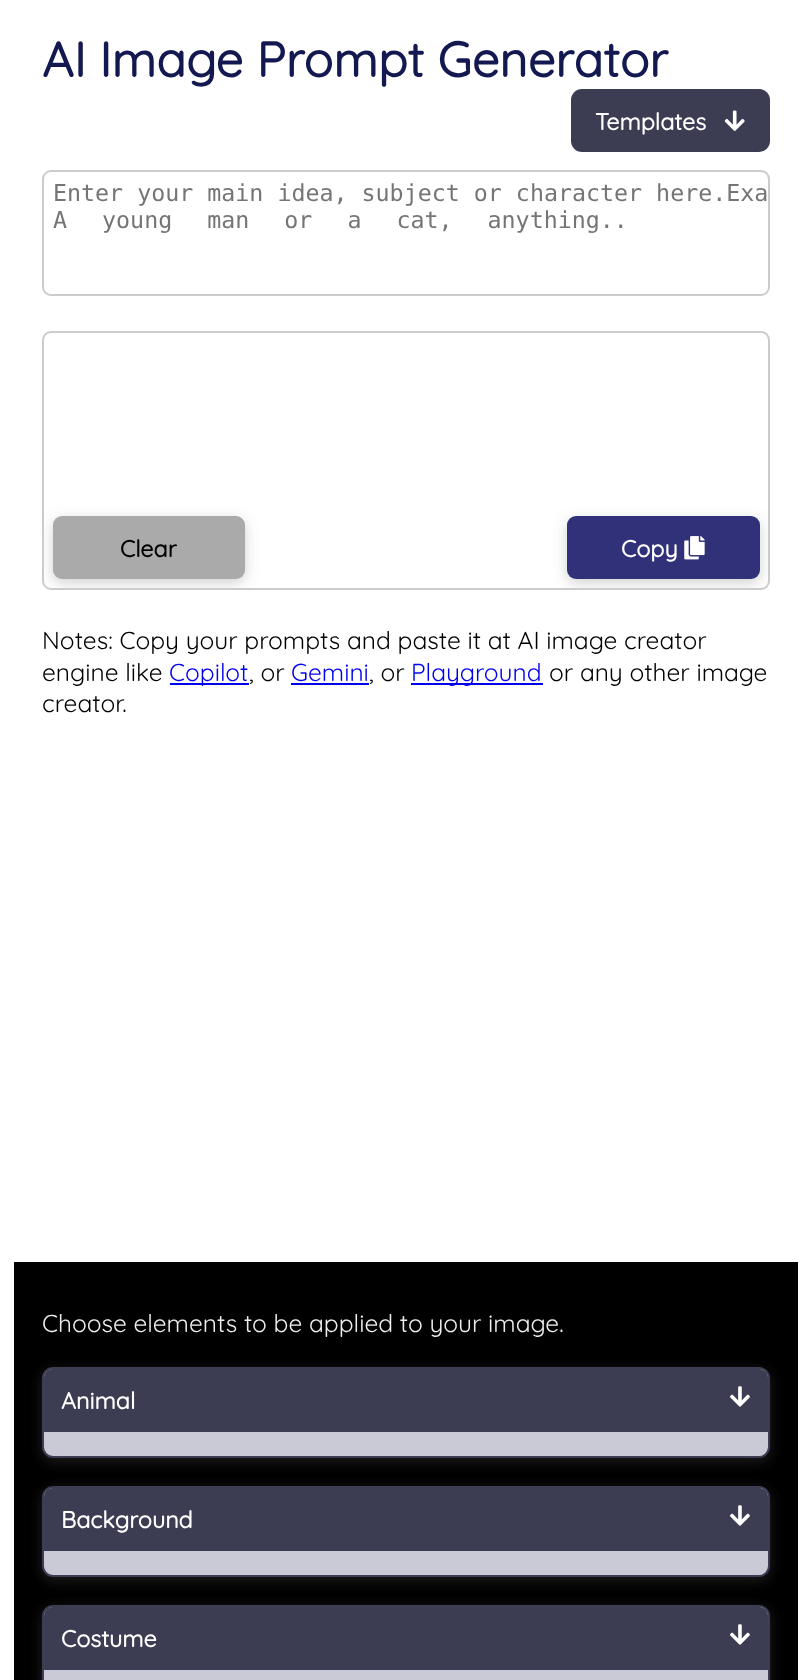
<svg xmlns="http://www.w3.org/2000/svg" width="811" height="1680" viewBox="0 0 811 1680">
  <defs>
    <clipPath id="clip1"><rect x="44" y="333" width="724" height="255" rx="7"/></clipPath>
    <filter id="blur1" x="-50%" y="-200%" width="200%" height="500%"><feGaussianBlur stdDeviation="7"/></filter>
  </defs>
  <rect width="100%" height="100%" fill="#ffffff"/>
  <text x="42" y="77" font-family="Quicksand" font-size="49" font-weight="bold" fill="#141850">AI Image Prompt Generator</text>
  <rect x="571" y="89" width="199" height="63" rx="11" fill="#3c3c53"/>
  <text x="595" y="130" font-family="Quicksand" font-size="23.3" font-weight="bold" fill="#ffffff">Templates</text>
  <image x="724" y="110" width="21" height="21" href="img1.png"/>
  <rect x="43" y="171" width="726" height="124" rx="8" fill="none" stroke="#cccccc" stroke-width="2"/>
  <text x="53" y="201" font-family="DejaVu Sans Mono" font-size="23.3" fill="#757575">Enter your main idea, subject or character here.Exa</text>
  <text x="53" y="228" word-spacing="21" font-family="DejaVu Sans Mono" font-size="23.3" fill="#757575">A young man or a cat, anything..</text>
  <rect x="43" y="332" width="726" height="257" rx="8" fill="none" stroke="#cccccc" stroke-width="2"/>
  <g clip-path="url(#clip1)">
    <rect x="53" y="520" width="192" height="63" rx="9" fill="#636363" fill-opacity="0.3" filter="url(#blur1)"/>
  </g>
  <rect x="53" y="516" width="192" height="63" rx="9" fill="#aaaaaa"/>
  <text x="120" y="557" font-family="Quicksand" font-size="23.3" font-weight="bold" fill="#000000">Clear</text>
  <g clip-path="url(#clip1)">
    <rect x="567" y="520" width="193" height="63" rx="9" fill="#636363" fill-opacity="0.3" filter="url(#blur1)"/>
  </g>
  <rect x="567" y="516" width="193" height="63" rx="9" fill="#303179"/>
  <text x="621" y="557" font-family="Quicksand" font-size="23.3" font-weight="bold" fill="#ffffff">Copy</text>
  <image x="684" y="536" width="21" height="24" href="img2.png"/>
  <text x="42" y="649" font-family="Quicksand" font-size="24.5" font-weight="300" fill="#000000">Notes: Copy your prompts and paste it at AI image creator</text>
  <text x="42" y="681" font-family="Quicksand" font-size="24.5" font-weight="300" fill="#000000">engine like</text>
  <rect x="170" y="683" width="79" height="2" fill="#0000ee"/>
  <text x="169" y="681" font-family="Quicksand" font-size="24.5" font-weight="300" fill="#0000ee">Copilot</text>
  <text x="249" y="681" font-family="Quicksand" font-size="24.5" font-weight="300" fill="#000000">, or</text>
  <text x="291" y="681" font-family="Quicksand" font-size="24.5" font-weight="300" fill="#0000ee">Gemini</text>
  <rect x="291" y="683" width="78" height="2" fill="#0000ee"/>
  <text x="369" y="681" font-family="Quicksand" font-size="24.5" font-weight="300" fill="#000000">, or</text>
  <rect x="411" y="683" width="132" height="2" fill="#0000ee"/>
  <text x="411" y="681" font-family="Quicksand" font-size="24.5" font-weight="300" fill="#0000ee">Playground</text>
  <text x="549" y="681" font-family="Quicksand" font-size="24.5" font-weight="300" fill="#000000">or any other image</text>
  <text x="42" y="712" font-family="Quicksand" font-size="24.5" font-weight="300" fill="#000000">creator.</text>
  <rect x="14" y="1262" width="784" height="418" fill="#000000"/>
  <text x="42" y="1332" font-family="Quicksand" font-size="24.5" font-weight="300" fill="#eeeeee">Choose elements to be applied to your image.</text>
  <rect x="42" y="1370" width="728" height="91" rx="11" fill="#636363" fill-opacity="0.3" filter="url(#blur1)"/>
  <rect x="43" y="1368" width="726" height="89" rx="10" fill="#cacad7" stroke="#3c3c53" stroke-width="2"/>
  <path d="M53 1369H759C764 1369 768 1373 768 1378V1432H44V1378C44 1373 48 1369 53 1369Z" fill="#3c3c53"/>
  <text x="61" y="1409" font-family="Quicksand" font-size="23.3" font-weight="bold" fill="#ffffff">Animal</text>
  <image x="730" y="1386" width="20" height="21" href="img3.png"/>
  <rect x="42" y="1489" width="728" height="91" rx="11" fill="#636363" fill-opacity="0.3" filter="url(#blur1)"/>
  <rect x="43" y="1487" width="726" height="89" rx="10" fill="#cacad7" stroke="#3c3c53" stroke-width="2"/>
  <path d="M53 1488H759C764 1488 768 1492 768 1497V1551H44V1497C44 1492 48 1488 53 1488Z" fill="#3c3c53"/>
  <text x="61" y="1528" font-family="Quicksand" font-size="23.3" font-weight="bold" fill="#ffffff">Background</text>
  <image x="730" y="1505" width="20" height="21" href="img3.png"/>
  <rect x="42" y="1608" width="728" height="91" rx="11" fill="#636363" fill-opacity="0.3" filter="url(#blur1)"/>
  <rect x="43" y="1606" width="726" height="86" rx="10" fill="#cacad7" stroke="#3c3c53" stroke-width="2"/>
  <path d="M53 1607H759C764 1607 768 1611 768 1616V1670H44V1616C44 1611 48 1607 53 1607Z" fill="#3c3c53"/>
  <text x="61" y="1647" font-family="Quicksand" font-size="23.3" font-weight="bold" fill="#ffffff">Costume</text>
  <image x="730" y="1624" width="20" height="21" href="img3.png"/>
</svg>
